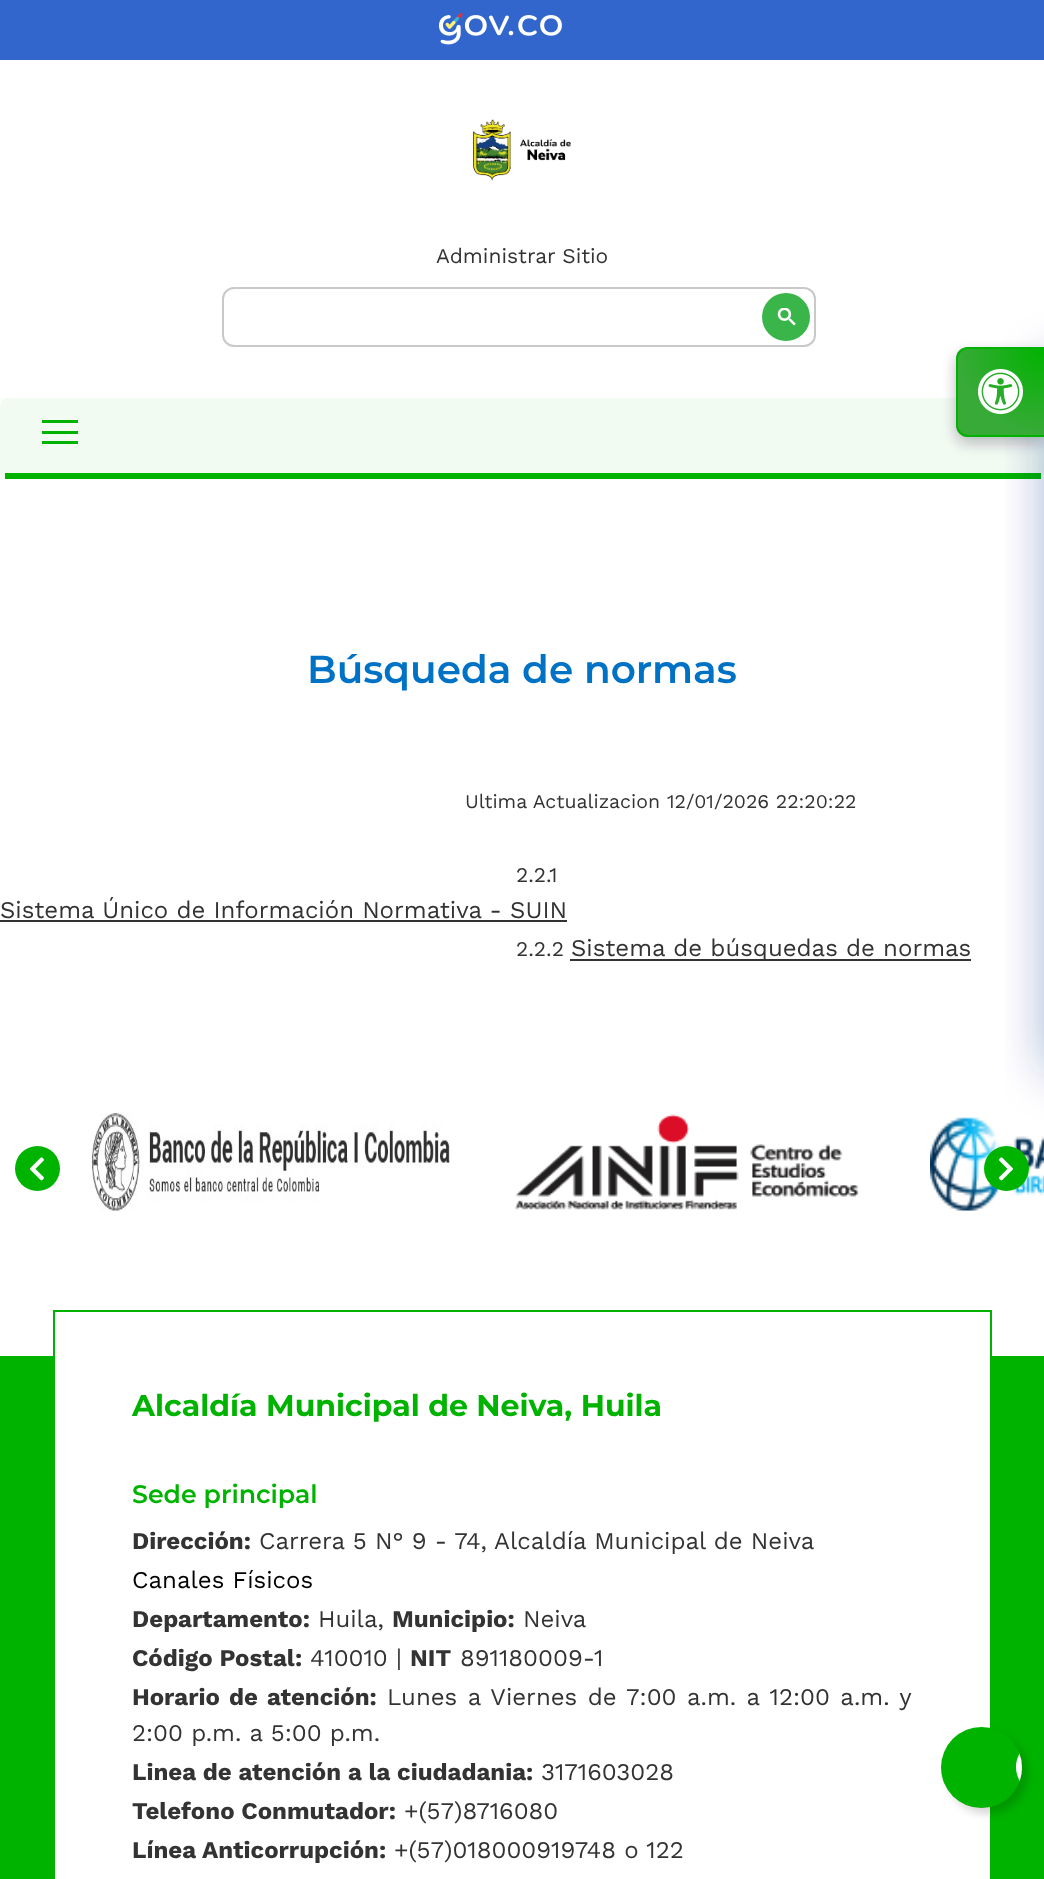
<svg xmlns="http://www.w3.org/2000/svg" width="1044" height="1879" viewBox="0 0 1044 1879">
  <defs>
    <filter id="blur1" x="-50%" y="-200%" width="200%" height="500%"><feGaussianBlur stdDeviation="4.5"/></filter>
    <clipPath id="clip1"><rect x="941" y="1727" width="81" height="81" rx="40.5"/></clipPath>
    <filter id="blur2" x="-50%" y="-200%" width="200%" height="500%"><feGaussianBlur stdDeviation="24"/></filter>
    <filter id="blur3" x="-50%" y="-200%" width="200%" height="500%"><feGaussianBlur stdDeviation="7"/></filter>
    <filter id="blur4" x="-50%" y="-200%" width="200%" height="500%"><feGaussianBlur stdDeviation="0.5"/></filter>
    <clipPath id="clip2"><path d="M968 347H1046V437H968C961.5 437 956 431.5 956 425V359C956 352.5 961.5 347 968 347Z"/></clipPath>
    <radialGradient id="g1" gradientUnits="userSpaceOnUse" cx="1044" cy="348" r="87"><stop offset="0" stop-color="#00b300"/><stop offset="1" stop-color="#38aa38"/></radialGradient>
  </defs>
  <rect width="100%" height="100%" fill="#ffffff"/>
  <rect x="0" y="0" width="1044" height="60" fill="#3366cc"/>
  <image x="438" y="13" width="124" height="32" href="img1.png"/>
  <image x="473" y="119" width="98" height="62" href="img2.png"/>
  <text x="436" y="263" font-family="Work Sans" font-size="21" fill="#333333">Administrar Sitio</text>
  <rect x="223" y="288" width="592" height="58" rx="11" fill="none" stroke="#c9c9c9" stroke-width="2"/>
  <circle cx="786" cy="317" r="24" fill="#39b54a"/>
  <image x="777" y="308" width="19" height="18" href="img3.png"/>
  <rect x="0" y="398" width="1044" height="81" rx="8" fill="#f2fbf2"/>
  <rect x="5" y="473" width="1036" height="6" fill="#00b300"/>
  <rect x="42" y="431" width="36" height="3" fill="#00b300"/>
  <rect x="42" y="420" width="36" height="3" fill="#00b300"/>
  <rect x="42" y="441" width="36" height="3" fill="#00b300"/>
  <text x="307" y="683" font-family="Montserrat" font-size="39" font-weight="600" fill="#0072c6">Búsqueda de normas</text>
  <text x="465" y="808" font-family="Work Sans" font-size="19.5" fill="#333333">Ultima Actualizacion</text>
  <text x="667" y="808" font-family="Work Sans" font-size="19.5" fill="#333333">12/01/2026 22:20:22</text>
  <text x="516" y="882" font-family="Work Sans" font-size="21" fill="#333333">2.2.1</text>
  <text x="0" y="918" font-family="Work Sans" font-size="24" fill="#333333">Sistema Único de Información Normativa - SUIN</text>
  <rect x="0" y="920" width="567" height="2" fill="#333333"/>
  <text x="516" y="956" font-family="Work Sans" font-size="21" fill="#333333">2.2.2</text>
  <rect x="570" y="959" width="401" height="2" fill="#333333"/>
  <text x="571" y="956" font-family="Work Sans" font-size="24" fill="#333333">Sistema de búsquedas de normas</text>
  <circle cx="37.5" cy="1168.5" r="22.5" fill="#00b300"/>
  <image x="29" y="1157" width="15" height="24" href="img4.png"/>
  <image x="90" y="1113" width="360" height="98" href="img5.png"/>
  <image x="515" y="1114" width="344" height="96" href="img6.png"/>
  <image x="930" y="1117" width="114" height="94" href="img7.png"/>
  <circle cx="1006.5" cy="1168.5" r="22.5" fill="#00b300"/>
  <image x="999" y="1157" width="14" height="24" href="img8.png"/>
  <rect x="0" y="1356" width="1044" height="523" fill="#00b300"/>
  <rect x="55" y="1356" width="935" height="523" fill="#ffffff"/>
  <rect x="54" y="1311" width="937" height="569" fill="none" stroke="#00b300" stroke-width="2"/>
  <text x="132" y="1416" font-family="Montserrat" font-size="30" font-weight="bold" fill="#00b300">Alcaldía Municipal de Neiva, Huila</text>
  <text x="132" y="1503" font-family="Montserrat" font-size="25.25" font-weight="600" fill="#00b300">Sede principal</text>
  <text x="132" y="1549" font-family="Work Sans" font-size="24" font-weight="bold" fill="#333333">Dirección:</text>
  <text x="259" y="1549" font-family="Work Sans" font-size="24" fill="#333333">Carrera 5 N° 9 - 74, Alcaldía Municipal de Neiva</text>
  <text x="132" y="1588" font-family="Work Sans" font-size="24" fill="#000000">Canales Físicos</text>
  <text x="132" y="1627" font-family="Work Sans" font-size="24" font-weight="bold" fill="#333333">Departamento:</text>
  <text x="318" y="1627" font-family="Work Sans" font-size="24" fill="#333333">Huila,</text>
  <text x="392" y="1627" font-family="Work Sans" font-size="24" font-weight="bold" fill="#333333">Municipio:</text>
  <text x="523" y="1627" font-family="Work Sans" font-size="24" fill="#333333">Neiva</text>
  <text x="132" y="1666" font-family="Work Sans" font-size="24" font-weight="bold" fill="#333333">Código Postal:</text>
  <text x="310" y="1666" font-family="Work Sans" font-size="24" fill="#333333">410010 |</text>
  <text x="410" y="1666" font-family="Work Sans" font-size="24" font-weight="bold" fill="#333333">NIT</text>
  <text x="460" y="1666" font-family="Work Sans" font-size="24" fill="#333333">891180009-1</text>
  <text x="132" y="1705" word-spacing="2.25" font-family="Work Sans" font-size="24" font-weight="bold" fill="#333333">Horario de atención:</text>
  <text x="387" y="1705" word-spacing="2.25" font-family="Work Sans" font-size="24" fill="#333333">Lunes a Viernes de 7:00 a.m. a 12:00 a.m. y</text>
  <text x="132" y="1741" font-family="Work Sans" font-size="24" fill="#333333">2:00 p.m. a 5:00 p.m.</text>
  <text x="132" y="1780" font-family="Work Sans" font-size="24" font-weight="bold" fill="#333333">Linea de atención a la ciudadania:</text>
  <text x="541" y="1780" font-family="Work Sans" font-size="24" fill="#333333">3171603028</text>
  <text x="132" y="1819" font-family="Work Sans" font-size="24" font-weight="bold" fill="#333333">Telefono Conmutador:</text>
  <text x="404" y="1819" font-family="Work Sans" font-size="24" fill="#333333">+(57)8716080</text>
  <text x="132" y="1858" font-family="Work Sans" font-size="24" font-weight="bold" fill="#333333">Línea</text>
  <text x="202" y="1858" font-family="Work Sans" font-size="24" font-weight="bold" fill="#333333">Anticorrupción:</text>
  <text x="394" y="1858" font-family="Work Sans" font-size="24" fill="#333333">+(57)018000919748 o 122</text>
  <rect x="947" y="1733" width="81" height="81" rx="40.5" fill="#000000" fill-opacity="0.16" filter="url(#blur1)"/>
  <circle cx="981.5" cy="1767.5" r="40.5" fill="#00b300"/>
  <g clip-path="url(#clip1)">
    <path d="M1043 1740H1022V1794H1043C1028 1794 1016 1782 1016 1767C1016 1752 1028 1740 1043 1740Z" fill="#ffffff"/>
  </g>
  <rect x="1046" y="359" width="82" height="714" rx="12" fill="#1f2687" fill-opacity="0.37" filter="url(#blur2)"/>
  <rect x="956" y="353" width="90" height="90" rx="12" fill="#2d2342" fill-opacity="0.3" filter="url(#blur3)"/>
  <rect x="956" y="347" width="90" height="90" rx="12" fill="#2d2342" fill-opacity="0.4" filter="url(#blur4)"/>
  <g clip-path="url(#clip2)">
    <rect x="957" y="348" width="87" height="87" fill="url(#g1)"/>
  </g>
  <path d="M968 348H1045V436H968C962 436 957 431 957 425V359C957 353 962 348 968 348Z" fill="none" stroke="#00b300" stroke-width="2"/>
  <image x="978" y="369" width="45" height="45" href="img9.png"/>
</svg>
